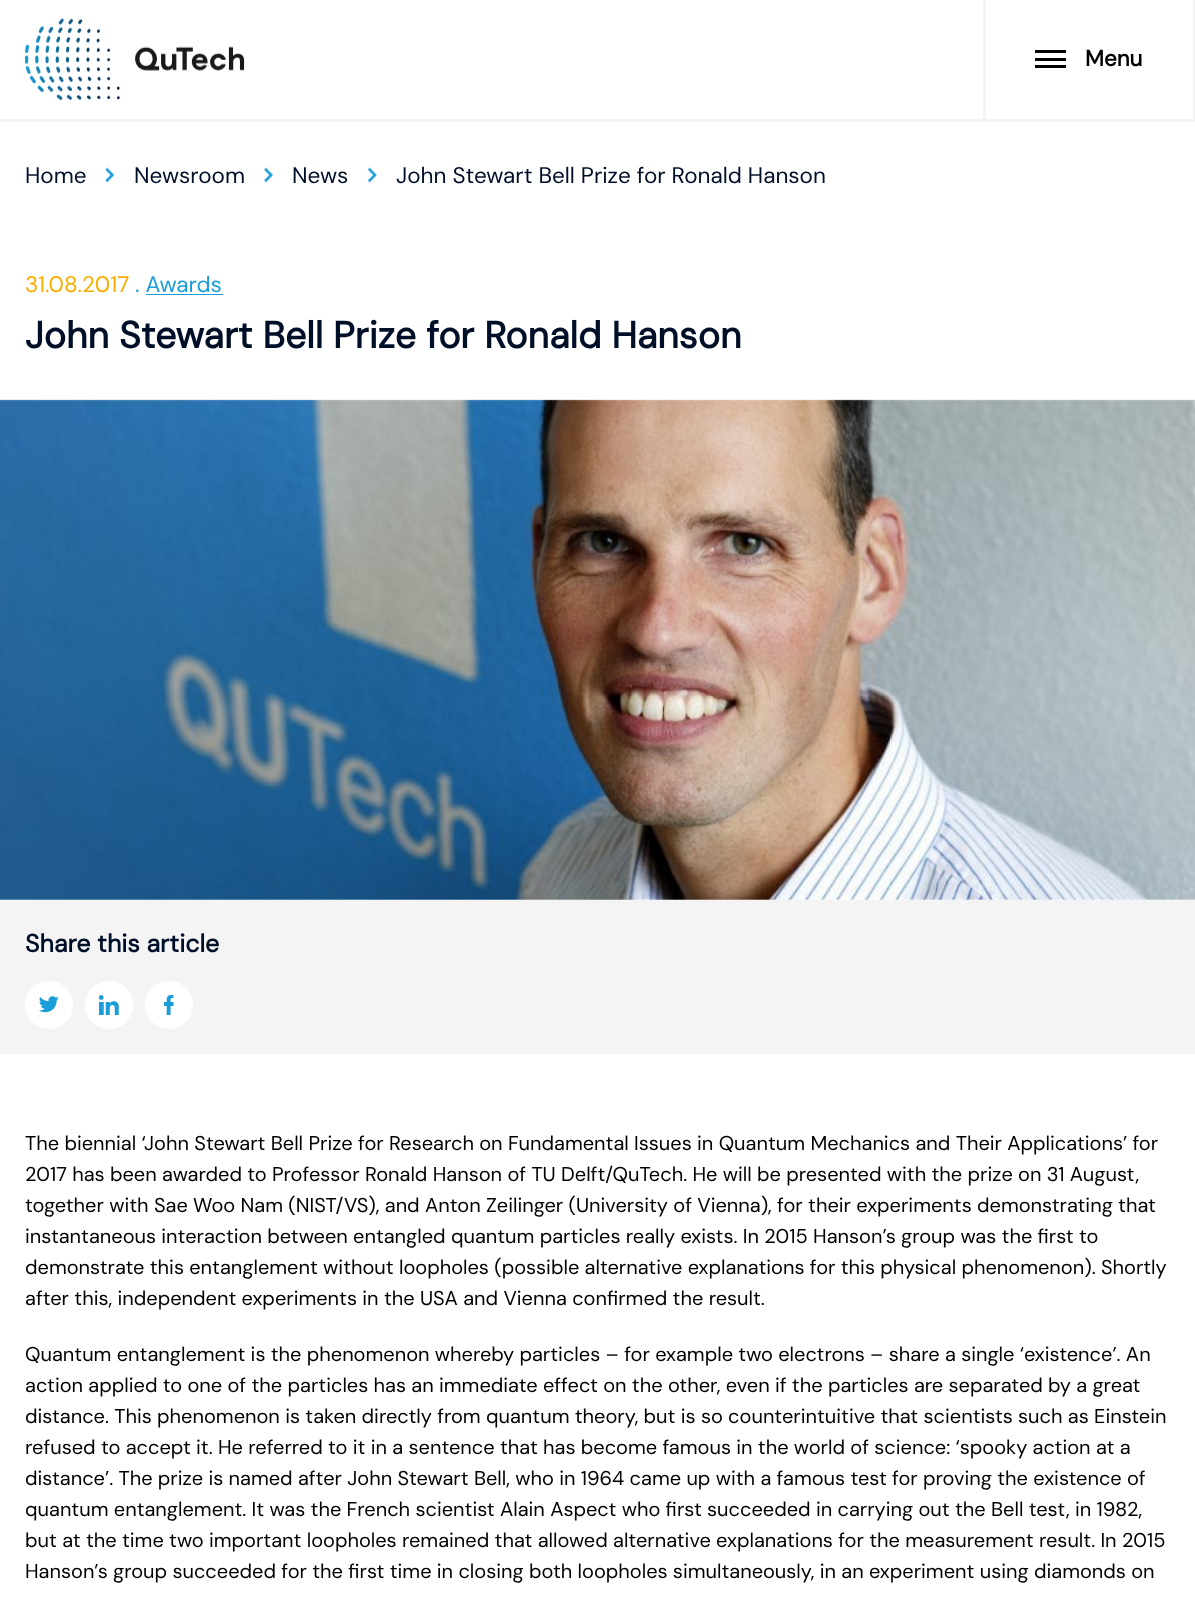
<svg xmlns="http://www.w3.org/2000/svg" width="1195" height="1600" viewBox="0 0 1195 1600">
  <rect width="100%" height="100%" fill="#ffffff"/>
  <rect x="0" y="119" width="1195" height="3" fill="#f4f4f4"/>
  <image x="25" y="18" width="220" height="82" href="img1.png"/>
  <rect x="1193" y="0" width="2" height="119" fill="#f4f4f4"/>
  <rect x="983" y="0" width="3" height="119" fill="#f4f4f4"/>
  <rect x="1035" y="58" width="31" height="3" fill="#000000"/>
  <rect x="1035" y="50" width="31" height="3" fill="#000000"/>
  <rect x="1035" y="65" width="31" height="3" fill="#000000"/>
  <text x="1085" y="66" font-family="DM Sans" font-size="22.5" font-weight="bold" fill="#000000">Menu</text>
  <text x="25" y="183" font-family="DM Sans" font-size="22.5" fill="#000f28">Home</text>
  <image x="105" y="167" width="10" height="16" href="img2.png"/>
  <text x="134" y="183" font-family="DM Sans" font-size="22.5" fill="#000f28">Newsroom</text>
  <image x="264" y="167" width="9" height="16" href="img3.png"/>
  <text x="292" y="183" font-family="DM Sans" font-size="22.5" fill="#000f28">News</text>
  <image x="368" y="167" width="9" height="16" href="img4.png"/>
  <text x="396" y="183" font-family="DM Sans" font-size="22.5" fill="#000f28">John Stewart Bell Prize for Ronald Hanson</text>
  <text x="25" y="292" font-family="DM Sans" font-size="22.5" fill="#f9ad00">31.08.2017</text>
  <text x="135" y="292" font-family="DM Sans" font-size="22.5" fill="#1a9dd9">. Awards</text>
  <rect x="146" y="294" width="77" height="1" fill="#1a9dd9"/>
  <text x="25" y="348" font-family="DM Sans" font-size="37.5" font-weight="bold" fill="#000f28">John Stewart Bell Prize for Ronald Hanson</text>
  <image x="0" y="399" width="1195" height="501" href="img5.png"/>
  <rect x="0" y="900" width="1195" height="154" fill="#f4f4f4"/>
  <text x="25" y="952" font-family="DM Sans" font-size="25" font-weight="bold" fill="#000f28">Share this article</text>
  <circle cx="49" cy="1005" r="24" fill="#ffffff"/>
  <image x="39" y="996" width="20" height="17" href="img6.png"/>
  <circle cx="109" cy="1005" r="24" fill="#ffffff"/>
  <image x="99" y="995" width="20" height="20" href="img7.png"/>
  <circle cx="169" cy="1005" r="24" fill="#ffffff"/>
  <image x="164" y="995" width="10" height="20" href="img8.png"/>
  <text x="25" y="1150" font-family="DM Sans" font-size="20" fill="#000000">The biennial ‘John Stewart Bell Prize for Research on Fundamental Issues in Quantum Mechanics and Their Applications’ for</text>
  <text x="25" y="1181" font-family="DM Sans" font-size="20" fill="#000000">2017 has been awarded to Professor Ronald Hanson of TU Delft/QuTech. He will be presented with the prize on 31 August,</text>
  <text x="25" y="1212" font-family="DM Sans" font-size="20" fill="#000000">together with Sae Woo Nam (NIST/VS), and Anton Zeilinger (University of Vienna), for their experiments demonstrating that</text>
  <text x="25" y="1243" font-family="DM Sans" font-size="20" fill="#000000">instantaneous interaction between entangled quantum particles really exists. In 2015 Hanson’s group was the first to</text>
  <text x="25" y="1274" font-family="DM Sans" font-size="20" fill="#000000">demonstrate this entanglement without loopholes (possible alternative explanations for this physical phenomenon). Shortly</text>
  <text x="25" y="1305" font-family="DM Sans" font-size="20" fill="#000000">after this, independent experiments in the USA and Vienna confirmed the result.</text>
  <text x="25" y="1361" font-family="DM Sans" font-size="20" fill="#000000">Quantum entanglement is the phenomenon whereby particles – for example two electrons – share a single ‘existence’. An</text>
  <text x="25" y="1392" font-family="DM Sans" font-size="20" fill="#000000">action applied to one of the particles has an immediate effect on the other, even if the particles are separated by a great</text>
  <text x="25" y="1423" font-family="DM Sans" font-size="20" fill="#000000">distance. This phenomenon is taken directly from quantum theory, but is so counterintuitive that scientists such as Einstein</text>
  <text x="25" y="1454" font-family="DM Sans" font-size="20" fill="#000000">refused to accept it. He referred to it in a sentence that has become famous in the world of science: ‘spooky action at a</text>
  <text x="25" y="1485" font-family="DM Sans" font-size="20" fill="#000000">distance’. The prize is named after John Stewart Bell, who in 1964 came up with a famous test for proving the existence of</text>
  <text x="25" y="1516" font-family="DM Sans" font-size="20" fill="#000000">quantum entanglement. It was the French scientist Alain Aspect who first succeeded in carrying out the Bell test, in 1982,</text>
  <text x="25" y="1547" font-family="DM Sans" font-size="20" fill="#000000">but at the time two important loopholes remained that allowed alternative explanations for the measurement result. In 2015</text>
  <text x="25" y="1578" font-family="DM Sans" font-size="20" fill="#000000">Hanson’s group succeeded for the first time in closing both loopholes simultaneously, in an experiment using diamonds on</text>
</svg>
